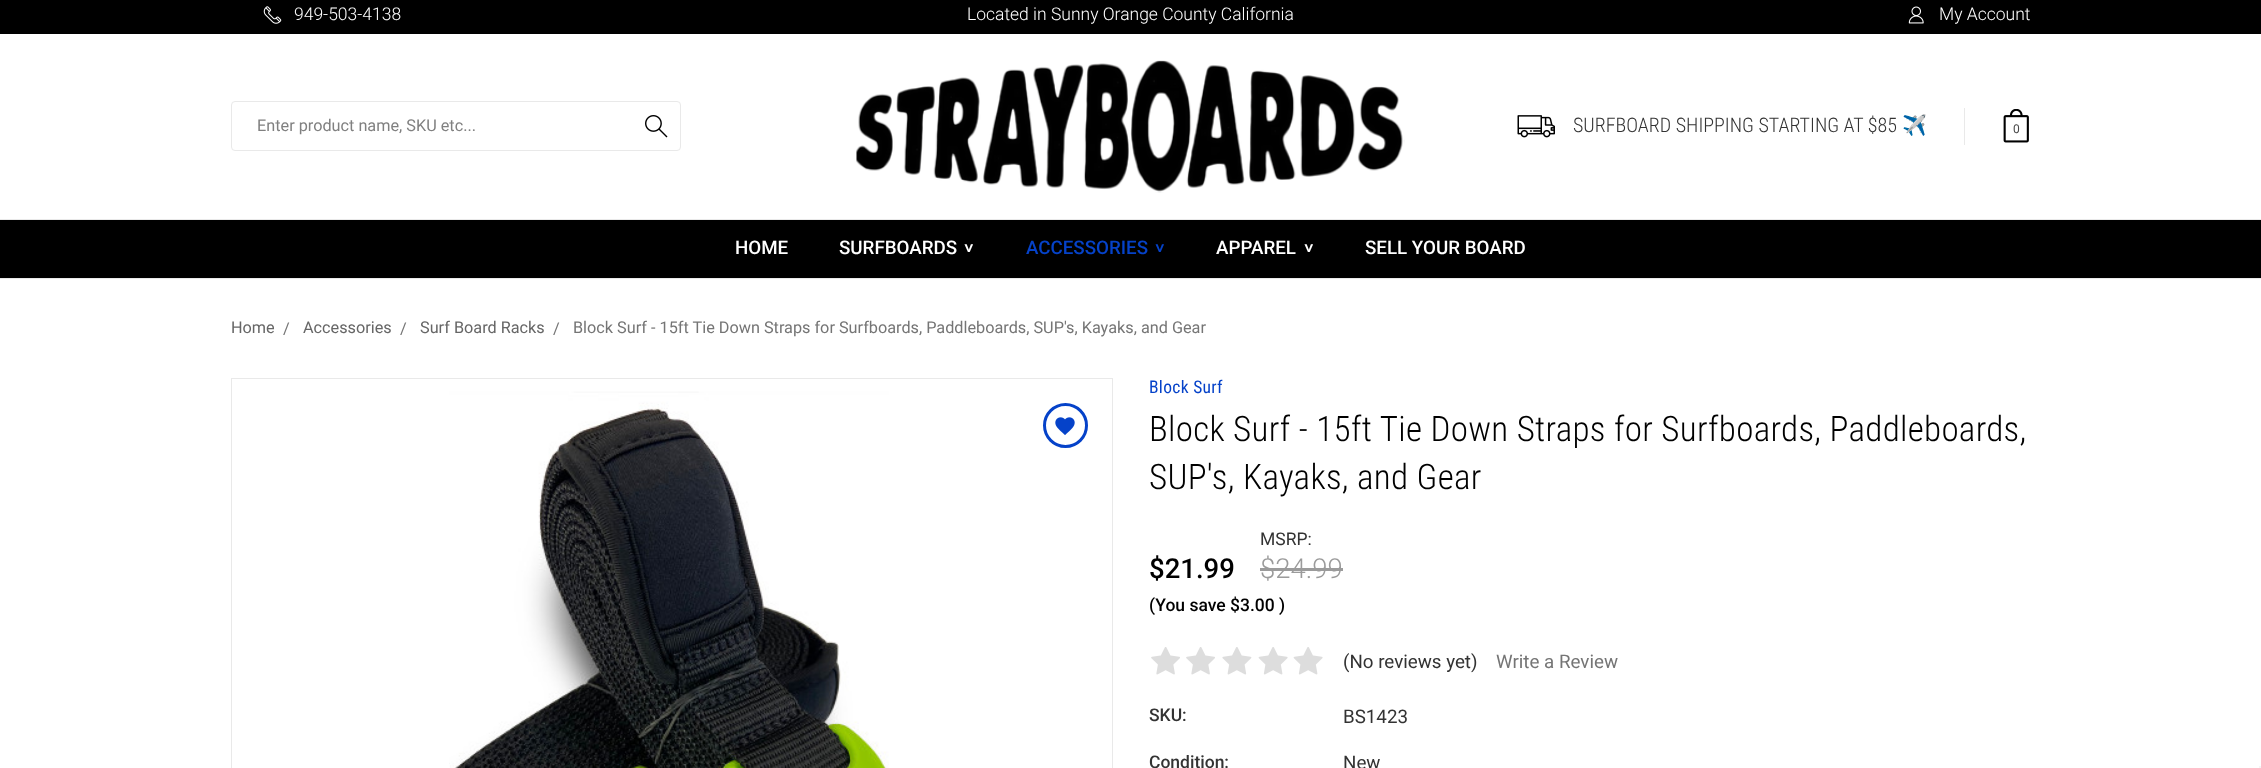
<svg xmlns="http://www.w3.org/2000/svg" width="2261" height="768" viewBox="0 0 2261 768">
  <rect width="100%" height="100%" fill="#ffffff"/>
  <rect x="0" y="278" width="2261" height="1" fill="#e9e9e9"/>
  <rect x="0" y="0" width="2261" height="34" fill="#000000"/>
  <image x="263" y="6" width="19" height="18" href="img1.png"/>
  <text x="294" y="20" font-family="Roboto" font-size="17.5" font-weight="300" fill="#ffffff">949-503-4138</text>
  <text x="967" y="20" font-family="Roboto" font-size="17.5" font-weight="300" fill="#ffffff">Located in Sunny Orange County California</text>
  <image x="1908" y="6" width="16" height="18" href="img2.png"/>
  <text x="1939" y="20" font-family="Roboto" font-size="17.5" font-weight="300" fill="#ffffff">My Account</text>
  <rect x="0" y="219" width="2261" height="1" fill="#e9e9e9"/>
  <rect x="231.5" y="101.5" width="449" height="49" rx="3.5" fill="none" stroke="#e9e9e9"/>
  <text x="257" y="131" font-family="Roboto" font-size="16.25" fill="#808080">Enter product name, SKU etc...</text>
  <image x="645" y="115" width="23" height="23" href="img3.png"/>
  <image x="856" y="60" width="549" height="133" href="img4.png"/>
  <rect x="1964" y="108" width="1" height="37" fill="#e9e9e9"/>
  <image x="1517" y="115" width="38" height="23" href="img5.png"/>
  <text x="1573" y="132" font-family="Roboto Condensed" font-size="20" font-weight="300" fill="#333333">SURFBOARD SHIPPING STARTING AT $85</text>
  <text x="1902" y="132" font-family="Noto Color Emoji" font-size="20" fill="#333333">✈️</text>
  <image x="2003" y="109" width="26" height="34" href="img6.png"/>
  <text x="2013" y="133" font-family="Roboto" font-size="12" fill="#474747">0</text>
  <rect x="0" y="220" width="2261" height="58" fill="#000000"/>
  <text x="735" y="254" font-family="Roboto" font-size="18.75" font-weight="500" fill="#ffffff">HOME</text>
  <text x="839" y="254" font-family="Roboto" font-size="18.75" font-weight="500" fill="#ffffff">SURFBOARDS</text>
  <text x="963" y="243" transform="rotate(90 963 243)" font-family="Roboto" font-size="18.75" font-weight="500" fill="#ffffff">&gt;</text>
  <text x="1026" y="254" font-family="Roboto" font-size="18.75" font-weight="500" fill="#0542c9">ACCESSORIES</text>
  <text x="1154" y="243" transform="rotate(90 1154 243)" font-family="Roboto" font-size="18.75" font-weight="500" fill="#0542c9">&gt;</text>
  <text x="1216" y="254" font-family="Roboto" font-size="18.75" font-weight="500" fill="#ffffff">APPAREL</text>
  <text x="1303" y="243" transform="rotate(90 1303 243)" font-family="Roboto" font-size="18.75" font-weight="500" fill="#ffffff">&gt;</text>
  <text x="1365" y="254" font-family="Roboto" font-size="18.75" font-weight="500" fill="#ffffff">SELL YOUR BOARD</text>
  <text x="231" y="333" font-family="Roboto" font-size="16.25" fill="#666666">Home</text>
  <text x="283" y="334" font-family="Roboto" font-size="16.25" fill="#757575">/</text>
  <text x="303" y="333" font-family="Roboto" font-size="16.25" fill="#666666">Accessories</text>
  <text x="400" y="334" font-family="Roboto" font-size="16.25" fill="#757575">/</text>
  <text x="420" y="333" font-family="Roboto" font-size="16.25" fill="#666666">Surf Board Racks</text>
  <text x="553" y="334" font-family="Roboto" font-size="16.25" fill="#757575">/</text>
  <text x="573" y="333" font-family="Roboto" font-size="16.25" fill="#757575">Block Surf - 15ft Tie Down Straps for Surfboards, Paddleboards, SUP's, Kayaks, and Gear</text>
  <rect x="231.5" y="378.5" width="881" height="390" fill="none" stroke="#e9e9e9"/>
  <image x="449" y="391" width="440" height="377" href="img7.png"/>
  <circle cx="1065.5" cy="425.5" r="21" fill="none" stroke="#0542c9" stroke-width="3"/>
  <image x="1055" y="417" width="20" height="18" href="img8.png"/>
  <text x="1149" y="393" font-family="Roboto Condensed" font-size="17.5" letter-spacing="0.3" fill="#0542c9">Block Surf</text>
  <text x="1149" y="441" font-family="Roboto Condensed" font-size="35" font-weight="300" letter-spacing="0.3" fill="#000000">Block Surf - 15ft Tie Down Straps for Surfboards, Paddleboards,</text>
  <text x="1149" y="489" font-family="Roboto Condensed" font-size="35" font-weight="300" letter-spacing="0.3" fill="#000000">SUP's, Kayaks, and Gear</text>
  <text x="1149" y="578" font-family="Roboto" font-size="27.5" font-weight="500" fill="#000000">$21.99</text>
  <text x="1260" y="545" font-family="Roboto" font-size="17.5" fill="#333333">MSRP:</text>
  <text x="1260" y="578" font-family="Roboto" font-size="27.5" font-weight="300" fill="#9b9b9b">$24.99</text>
  <rect x="1260" y="568" width="83" height="3" fill="#9b9b9b"/>
  <text x="1149" y="611" font-family="Roboto" font-size="17.5" font-weight="500" fill="#000000">(You save $3.00 )</text>
  <image x="1151" y="647" width="29" height="28" href="img9.png"/>
  <image x="1186" y="647" width="29" height="28" href="img9.png"/>
  <image x="1222" y="647" width="30" height="28" href="img10.png"/>
  <image x="1258" y="647" width="30" height="28" href="img11.png"/>
  <image x="1293" y="647" width="30" height="28" href="img11.png"/>
  <text x="1343" y="668" font-family="Roboto" font-size="18.75" fill="#333333">(No reviews yet)</text>
  <text x="1496" y="668" font-family="Roboto" font-size="18.75" fill="#757575">Write a Review</text>
  <text x="1149" y="721" font-family="Roboto" font-size="17.5" font-weight="500" fill="#333333">SKU:</text>
  <text x="1343" y="723" font-family="Roboto" font-size="18.75" fill="#333333">BS1423</text>
  <text x="1149" y="768" font-family="Roboto" font-size="17.5" font-weight="500" fill="#333333">Condition:</text>
  <text x="1343" y="769" font-family="Roboto" font-size="18.75" fill="#333333">New</text>
  <rect x="2259" y="766" width="2" height="2" fill="#f5f5f5"/>
</svg>
